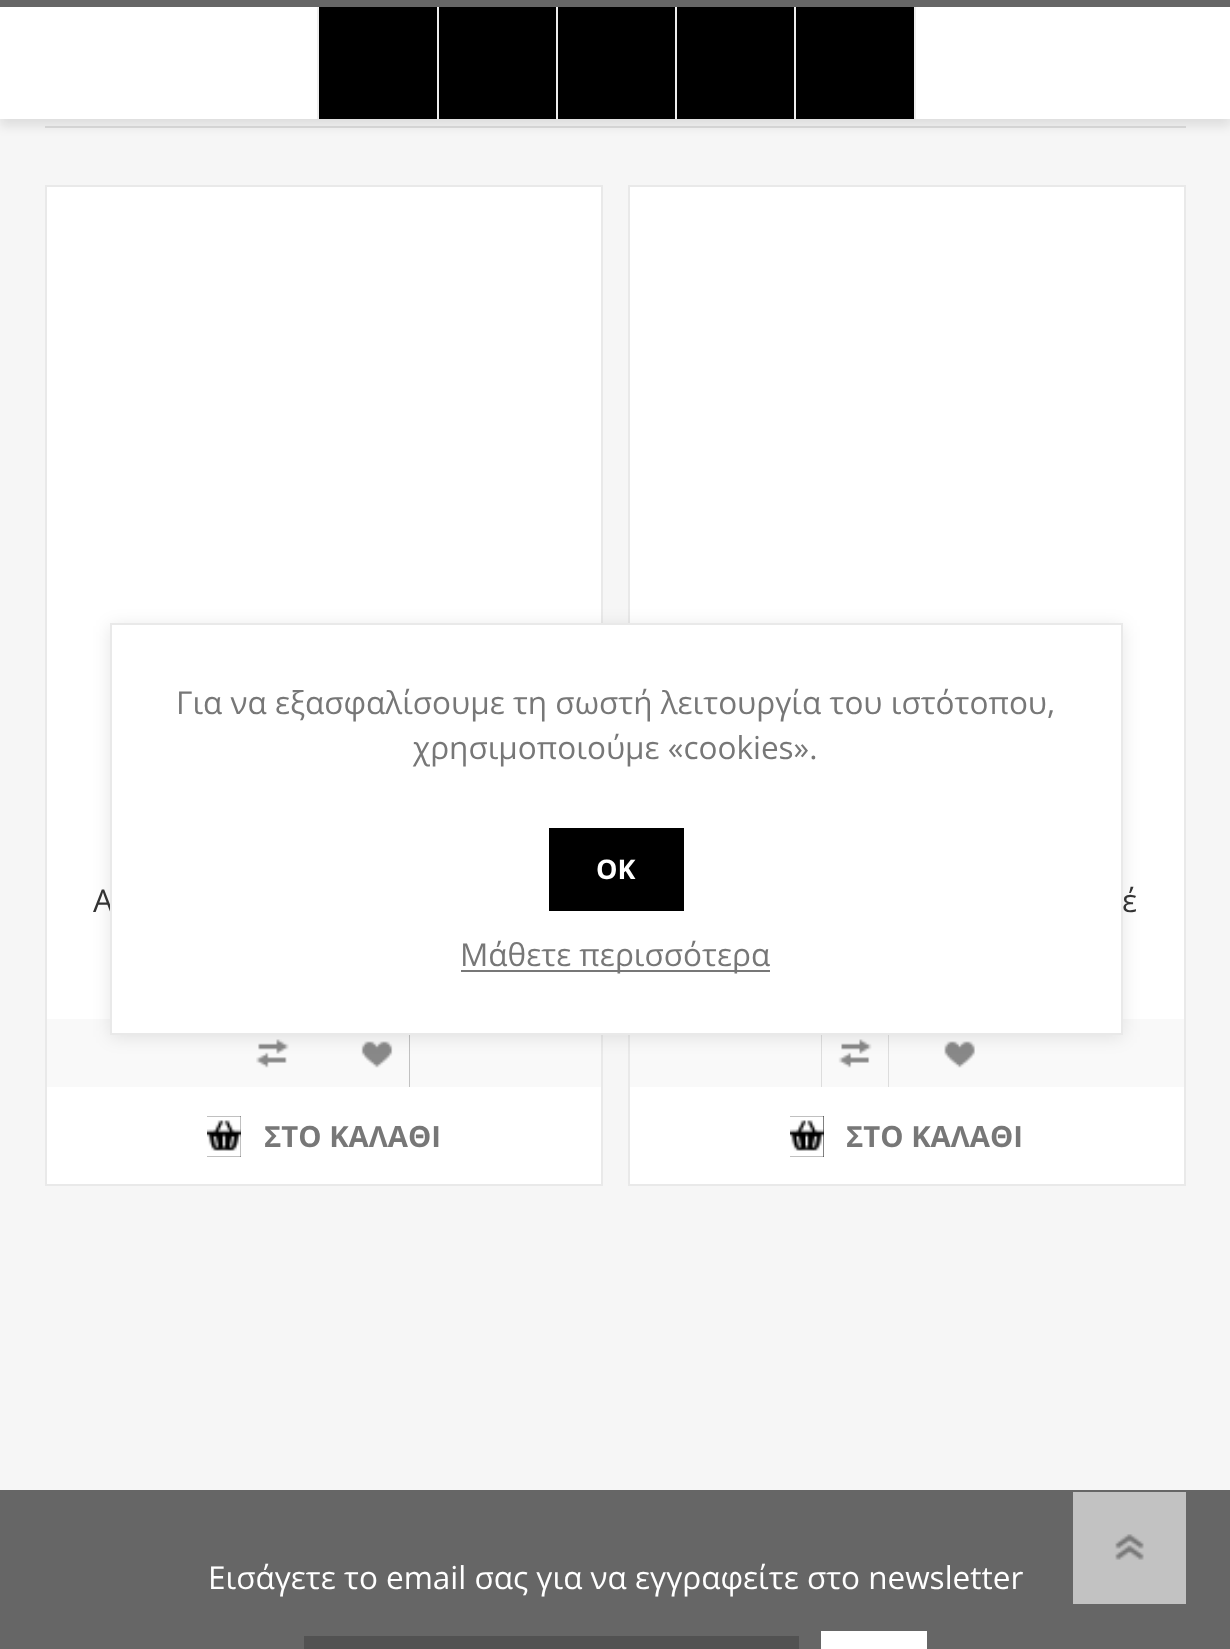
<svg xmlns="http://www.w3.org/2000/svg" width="1230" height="1649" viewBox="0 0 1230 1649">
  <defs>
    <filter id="blur1" x="-50%" y="-200%" width="200%" height="500%"><feGaussianBlur stdDeviation="9"/></filter>
    <filter id="blur2" x="-50%" y="-200%" width="200%" height="500%"><feGaussianBlur stdDeviation="5.5"/></filter>
  </defs>
  <rect width="100%" height="100%" fill="#f6f6f6"/>
  <rect x="46" y="186" width="556" height="999" fill="#ffffff" stroke="#e9e9e9" stroke-width="2"/>
  <rect x="47" y="1019" width="554" height="68" fill="#f9f9f9"/>
  <rect x="256" y="1039" width="33" height="29" fill="#888888"/>
  <image x="239" y="1035" width="67" height="52" href="img1.png"/>
  <rect x="361" y="1035" width="49" height="52" fill="#888888"/>
  <image x="342" y="1035" width="68" height="52" href="img2.png"/>
  <rect x="629" y="186" width="556" height="999" fill="#ffffff" stroke="#e9e9e9" stroke-width="2"/>
  <rect x="630" y="1019" width="554" height="68" fill="#f9f9f9"/>
  <rect x="821" y="1035" width="68" height="52" fill="#888888"/>
  <image x="821" y="1035" width="68" height="52" href="img4.png"/>
  <rect x="944" y="1041" width="31" height="27" fill="#888888"/>
  <image x="925" y="1035" width="67" height="52" href="img5.png"/>
  <rect x="110" y="626" width="1013" height="411" fill="#000000" fill-opacity="0.1" filter="url(#blur1)"/>
  <text x="93" y="912" font-family="Open Sans" font-size="31.5" fill="#333333">Α</text>
  <rect x="111" y="624" width="1011" height="410" fill="#ffffff" stroke="#e9e9e9" stroke-width="2"/>
  <text x="176" y="714" font-family="Open Sans" font-size="31.5" fill="#777777">Για να εξασφαλίσουμε τη σωστή λειτουργία του ιστότοπου,</text>
  <text x="413" y="759" font-family="Open Sans" font-size="31.5" fill="#777777">χρησιμοποιούμε «cookies».</text>
  <rect x="549" y="828" width="135" height="83" fill="#000000"/>
  <text x="596" y="879" font-family="Open Sans" font-size="27" font-weight="bold" fill="#ffffff">OK</text>
  <rect x="461" y="970" width="309" height="2" fill="#777777"/>
  <text x="460" y="966" font-family="Open Sans" font-size="31.5" fill="#777777">Μάθετε περισσότερα</text>
  <rect x="45" y="126" width="1141" height="2" fill="#dddddd"/>
  <rect x="0" y="7" width="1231" height="119" fill="#000000" fill-opacity="0.1" filter="url(#blur2)"/>
  <rect x="0" y="7" width="1230" height="112" fill="#ffffff"/>
  <rect x="0" y="0" width="1230" height="7" fill="#666666"/>
  <rect x="319" y="7" width="118" height="112" fill="#000000"/>
  <rect x="437" y="7" width="2" height="112" fill="#eeeeee"/>
  <rect x="317" y="7" width="2" height="112" fill="#eeeeee"/>
  <rect x="439" y="7" width="117" height="112" fill="#000000"/>
  <rect x="556" y="7" width="2" height="112" fill="#eeeeee"/>
  <rect x="558" y="7" width="117" height="112" fill="#000000"/>
  <rect x="675" y="7" width="2" height="112" fill="#eeeeee"/>
  <rect x="677" y="7" width="237" height="112" fill="#000000"/>
  <rect x="794" y="7" width="2" height="112" fill="#eeeeee"/>
  <rect x="914" y="7" width="2" height="112" fill="#eeeeee"/>
  <rect x="207" y="1116" width="34" height="41" fill="#000000"/>
  <image x="207" y="1116" width="34" height="41" href="img3.png"/>
  <text x="264" y="1147" font-family="Open Sans" font-size="29.25" font-weight="bold" fill="#777777">ΣΤΟ ΚΑΛΑΘΙ</text>
  <text x="1122" y="912" font-family="Open Sans" font-size="31.5" fill="#333333">έ</text>
  <rect x="790" y="1116" width="34" height="41" fill="#000000"/>
  <image x="790" y="1116" width="34" height="41" href="img6.png"/>
  <text x="846" y="1147" font-family="Open Sans" font-size="29.25" font-weight="bold" fill="#777777">ΣΤΟ ΚΑΛΑΘΙ</text>
  <rect x="0" y="1490" width="1230" height="159" fill="#666666"/>
  <text x="208" y="1589" font-family="Open Sans" font-size="31.5" fill="#ffffff">Εισάγετε το email σας για να εγγραφείτε στο newsletter</text>
  <rect x="304" y="1636" width="495" height="13" fill="#525252"/>
  <rect x="821" y="1631" width="106" height="18" fill="#ffffff"/>
  <rect x="1073" y="1492" width="113" height="112" fill="#c2c2c2"/>
  <image x="1115" y="1534" width="29" height="26" href="img7.png"/>
</svg>
